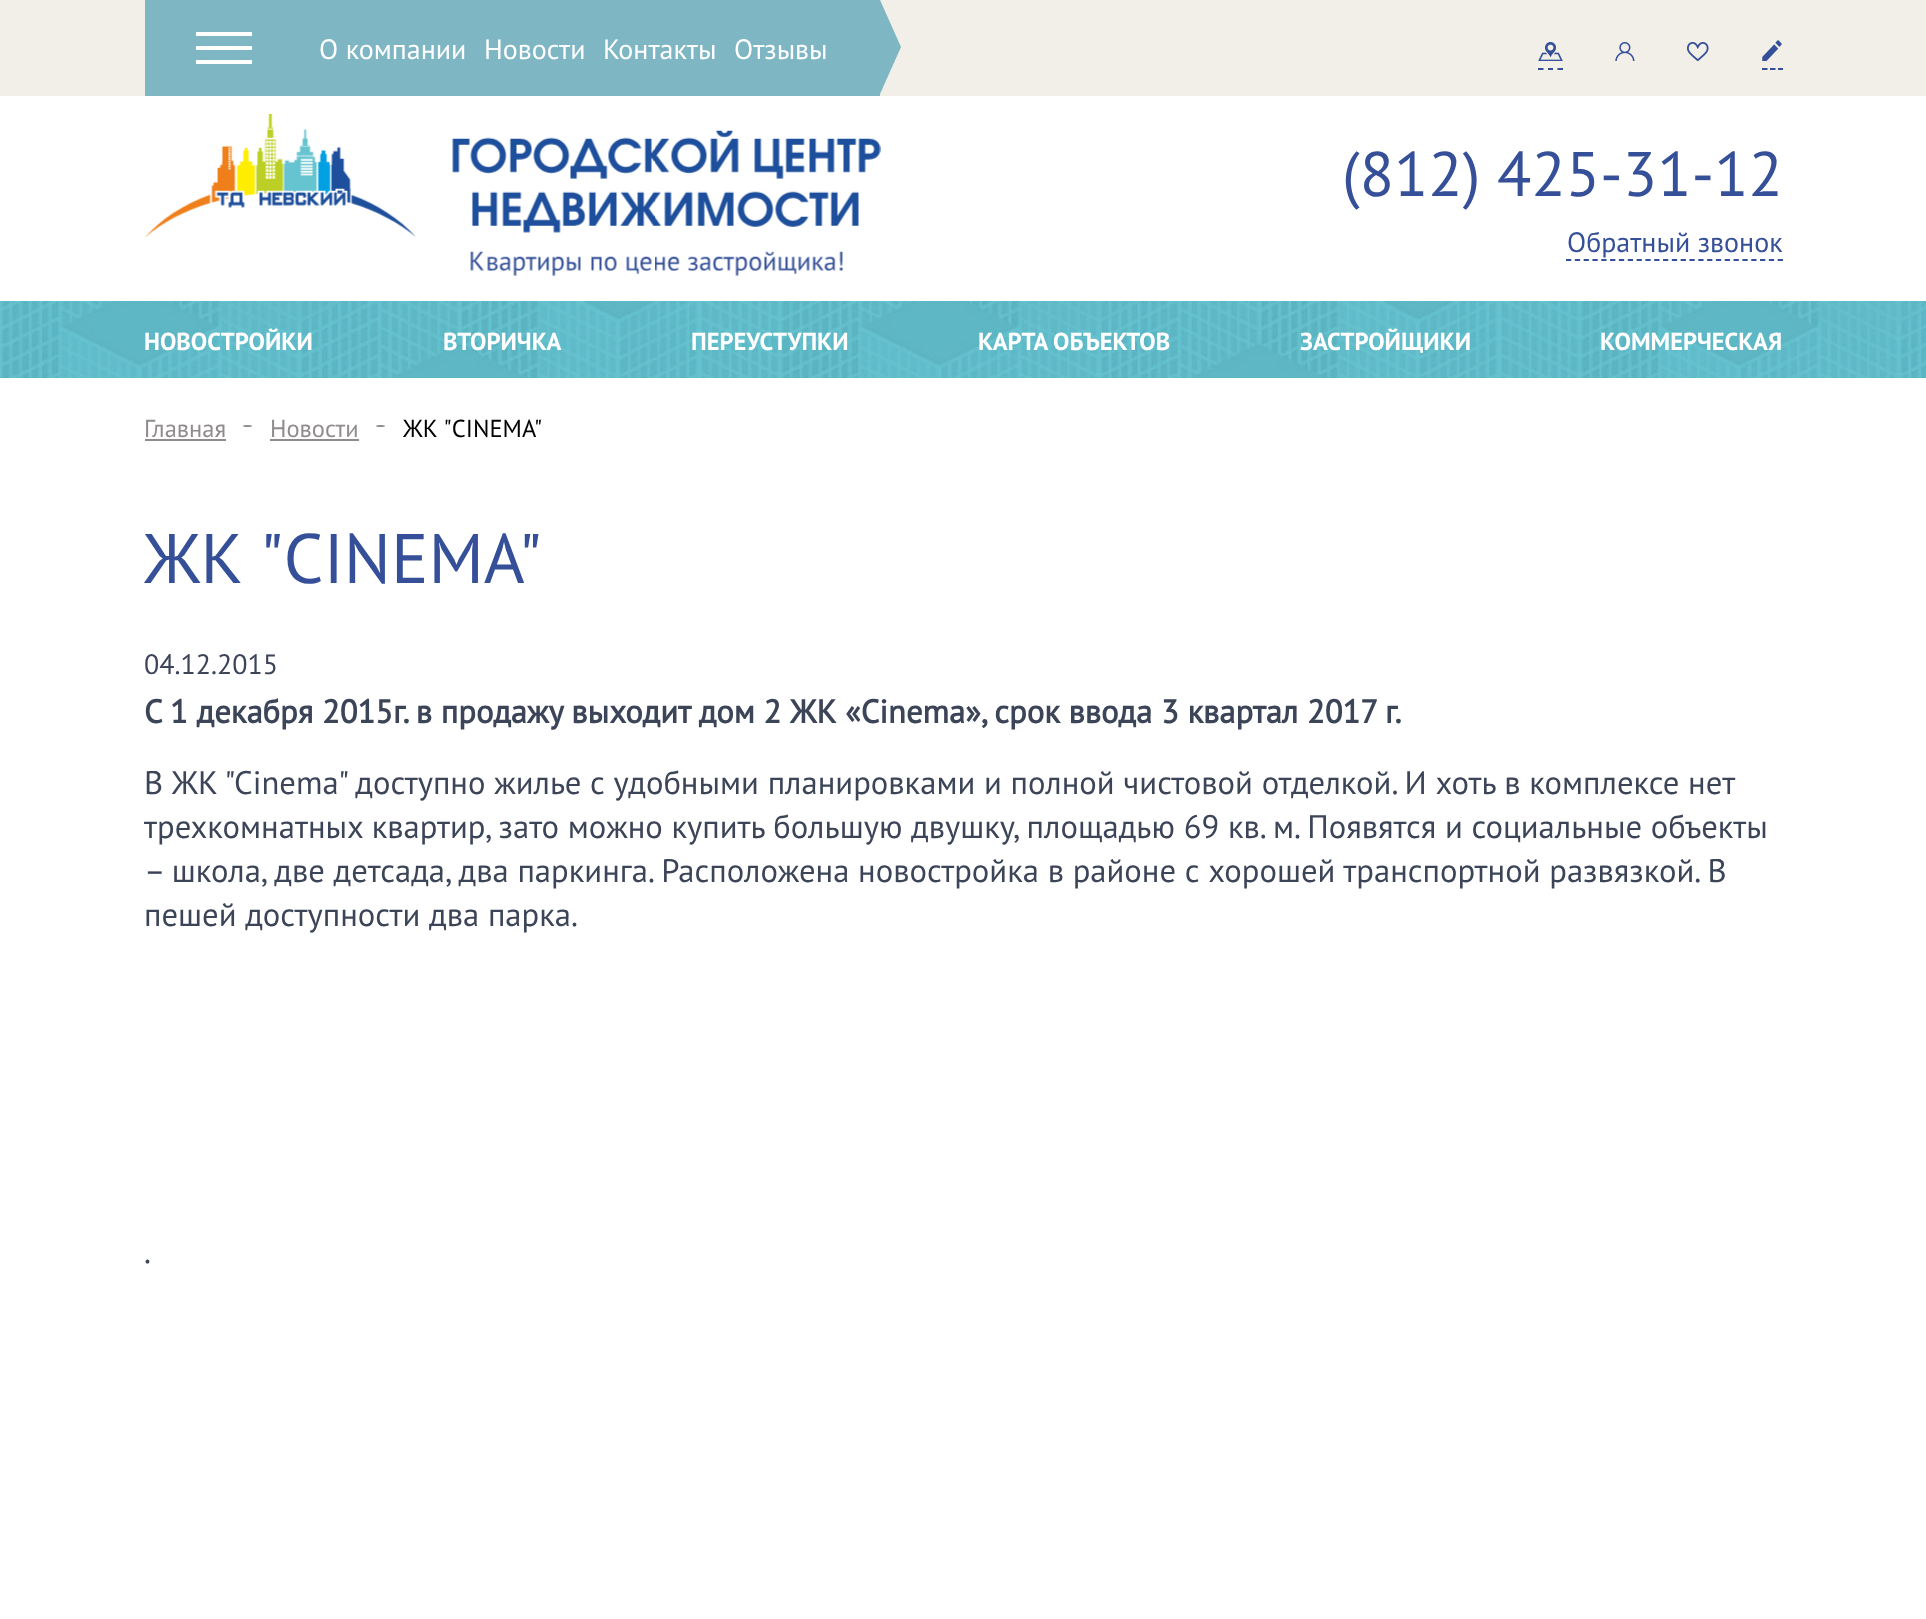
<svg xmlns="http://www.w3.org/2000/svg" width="1926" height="1619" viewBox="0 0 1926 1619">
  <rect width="100%" height="100%" fill="#ffffff"/>
  <rect x="0" y="0" width="1926" height="96" fill="#f2efe9"/>
  <rect x="145" y="0" width="735" height="96" fill="#7fb6c3"/>
  <rect x="196" y="32" width="56" height="4" fill="#ffffff"/>
  <rect x="196" y="46" width="56" height="4" fill="#ffffff"/>
  <rect x="196" y="60" width="56" height="4" fill="#ffffff"/>
  <text x="319" y="59" font-family="PT Sans" font-size="28" fill="#ffffff">О компании</text>
  <text x="484" y="59" font-family="PT Sans" font-size="28" fill="#ffffff">Новости</text>
  <text x="603" y="59" font-family="PT Sans" font-size="28" fill="#ffffff">Контакты</text>
  <text x="734" y="59" font-family="PT Sans" font-size="28" fill="#ffffff">Отзывы</text>
  <path d="M880 94V0L901 47Z" fill="#7fb6c3"/>
  <image x="1538" y="42" width="25" height="19" href="img1.png"/>
  <path d="M1538 69H1543.5M1548 69H1553M1557.5 69H1563" fill="none" stroke="#355098" stroke-width="1.8"/>
  <image x="1615" y="42" width="20" height="19" href="img2.png"/>
  <image x="1687" y="42" width="22" height="19" href="img3.png"/>
  <image x="1762" y="40" width="20" height="21" href="img4.png"/>
  <path d="M1762 69H1767.5M1770 69H1775.5M1778 69H1783" fill="none" stroke="#355098" stroke-width="1.8"/>
  <image x="145" y="114" width="736" height="162" href="img5.png"/>
  <text x="1342" y="196" font-family="PT Sans" font-size="63" fill="#355098">(812) 425-31-12</text>
  <text x="1567" y="252" font-family="PT Sans" font-size="28" fill="#355098">Обратный звонок</text>
  <path d="M1566 260H1783" fill="none" stroke="#355098" stroke-width="1.8" stroke-dasharray="5.25 3.57"/>
  <image x="0" y="301" width="1926" height="77" href="img6.png"/>
  <text x="144" y="350" font-family="PT Sans" font-size="24.5" font-weight="bold" fill="#ffffff">НОВОСТРОЙКИ</text>
  <text x="443" y="350" font-family="PT Sans" font-size="24.5" font-weight="bold" fill="#ffffff">ВТОРИЧКА</text>
  <text x="691" y="350" font-family="PT Sans" font-size="24.5" font-weight="bold" fill="#ffffff">ПЕРЕУСТУПКИ</text>
  <text x="978" y="350" font-family="PT Sans" font-size="24.5" font-weight="bold" fill="#ffffff">КАРТА ОБЪЕКТОВ</text>
  <text x="1300" y="350" font-family="PT Sans" font-size="24.5" font-weight="bold" fill="#ffffff">ЗАСТРОЙЩИКИ</text>
  <text x="1600" y="350" font-family="PT Sans" font-size="24.5" font-weight="bold" fill="#ffffff">КОММЕРЧЕСКАЯ</text>
  <text x="144" y="437" font-family="PT Sans" font-size="24.5" fill="#908b8d">Главная</text>
  <rect x="145" y="439" width="81" height="2" fill="#908b8d"/>
  <ellipse cx="247.5" cy="426" rx="4.5" ry="1" fill="#908b8d"/>
  <text x="270" y="437" font-family="PT Sans" font-size="24.5" fill="#908b8d">Новости</text>
  <rect x="270" y="439" width="89" height="2" fill="#908b8d"/>
  <ellipse cx="380.5" cy="426" rx="4.5" ry="1" fill="#908b8d"/>
  <text x="403" y="437" word-spacing="1" font-family="PT Sans" font-size="24.5" fill="#000000">ЖК "CINEMA"</text>
  <text x="144" y="583" word-spacing="3" font-family="PT Sans" font-size="70" fill="#355098">ЖК "CINEMA"</text>
  <text x="144" y="674" font-family="PT Sans" font-size="28" fill="#3c4458">04.12.2015</text>
  <text x="144" y="723" font-family="'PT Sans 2'" font-size="32.65" font-weight="bold" fill="#3c4458">С 1 декабря 2015г. в продажу выходит дом 2 ЖК «Cinema», срок ввода 3 квартал 2017 г.</text>
  <text x="144" y="794" font-family="PT Sans" font-size="32.65" fill="#3c4458">В ЖК "Сinema" доступно жилье с удобными планировками и полной чистовой отделкой. И хоть в комплексе нет</text>
  <text x="144" y="838" font-family="PT Sans" font-size="32.65" fill="#3c4458">трехкомнатных квартир, зато можно купить большую двушку, площадью 69 кв. м. Появятся и социальные объекты</text>
  <text x="144" y="882" font-family="PT Sans" font-size="32.65" fill="#3c4458">– школа, две детсада, два паркинга. Расположена новостройка в районе с хорошей транспортной развязкой. В</text>
  <text x="144" y="926" font-family="PT Sans" font-size="32.65" fill="#3c4458">пешей доступности два парка.</text>
  <text x="144" y="1263" font-family="PT Sans" font-size="32.65" fill="#3c4458">.</text>
</svg>
